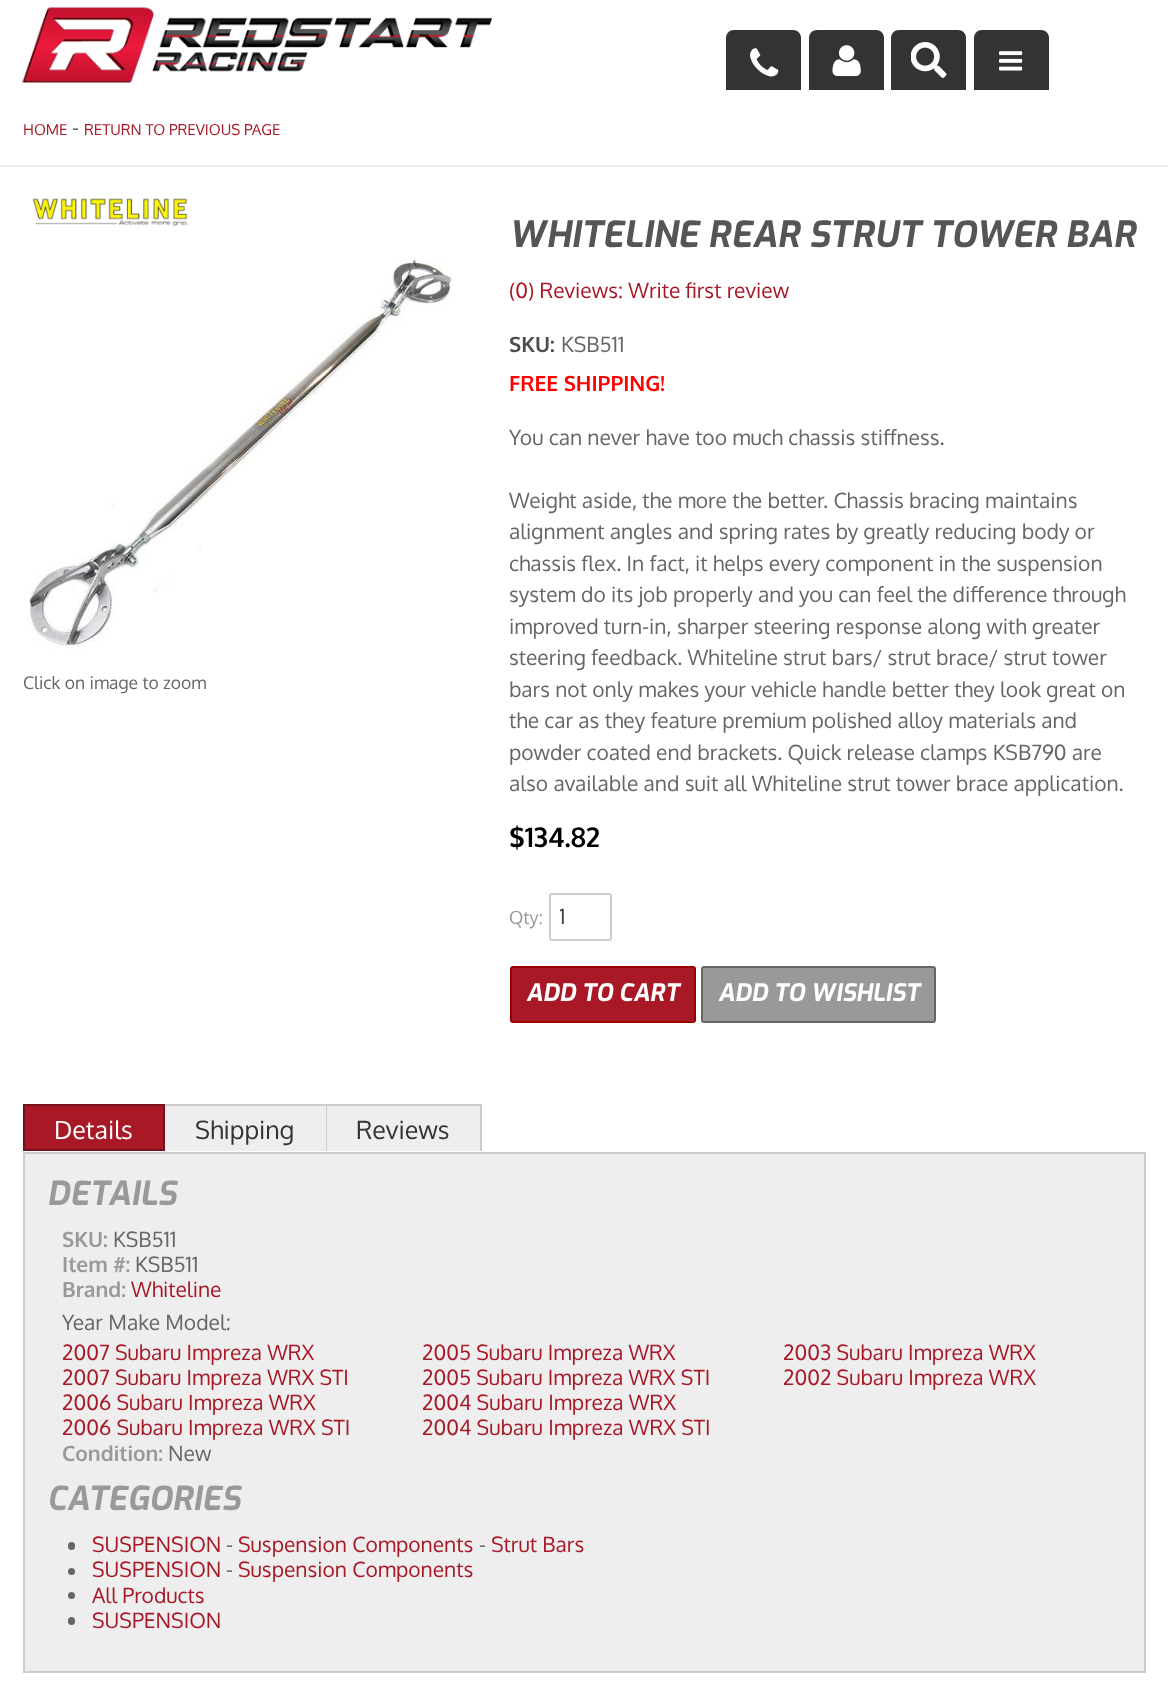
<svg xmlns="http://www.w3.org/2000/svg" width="1168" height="1694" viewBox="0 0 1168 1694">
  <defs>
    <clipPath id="clip1"><rect x="560" y="903" width="42" height="26"/></clipPath>
  </defs>
  <rect width="100%" height="100%" fill="#ffffff"/>
  <image x="22" y="7" width="470" height="76" href="img1.png"/>
  <path d="M734 30H793C797.5 30 801 33.5 801 38V90H726V38C726 33.5 729.5 30 734 30Z" fill="#333333"/>
  <image x="750" y="48" width="29" height="29" href="img2.png"/>
  <path d="M817 30H876C880.5 30 884 33.5 884 38V90H809V38C809 33.5 812.5 30 817 30Z" fill="#333333"/>
  <image x="832" y="45" width="29" height="32" href="img3.png"/>
  <path d="M899 30H958C962.5 30 966 33.5 966 38V90H891V38C891 33.5 894.5 30 899 30Z" fill="#333333"/>
  <image x="911" y="42" width="36" height="36" href="img4.png"/>
  <path d="M982 30H1041C1045.5 30 1049 33.5 1049 38V90H974V38C974 33.5 977.5 30 982 30Z" fill="#333333"/>
  <image x="999" y="51" width="24" height="20" href="img5.png"/>
  <text x="23" y="135" font-family="Oxygen" font-size="15" fill="#a81826">HOME</text>
  <text x="72" y="135" font-family="Oxygen" font-size="21" fill="#666666">-</text>
  <text x="84" y="135" font-family="Oxygen" font-size="15" fill="#a81826">RETURN TO PREVIOUS PAGE</text>
  <rect x="0" y="165" width="1168" height="2" fill="#eeeeee"/>
  <image x="32" y="198" width="156" height="29" href="img6.png"/>
  <image x="29" y="258" width="425" height="391" href="img7.png"/>
  <text x="23" y="689" font-family="Oxygen" font-size="17.5" fill="#666666">Click on image to zoom</text>
  <text x="509" y="247" font-family="Exo" font-size="36" font-weight="bold" font-style="italic" fill="#555555">WHITELINE REAR STRUT TOWER BAR</text>
  <text x="509" y="298" font-family="Oxygen" font-size="21" fill="#a81826">(0) Reviews: Write first review</text>
  <text x="509" y="352" font-family="Oxygen" font-size="21" font-weight="bold" fill="#4d4d4d">SKU:</text>
  <text x="561" y="352" font-family="Oxygen" font-size="21" fill="#666666">KSB511</text>
  <text x="509" y="391" font-family="Oxygen" font-size="21" font-weight="bold" fill="#ff0000">FREE SHIPPING!</text>
  <text x="509" y="445" font-family="Oxygen" font-size="21" fill="#666666">You can never have too much chassis stiffness.</text>
  <text x="509" y="508" font-family="Oxygen" font-size="21" fill="#666666">Weight aside, the more the better. Chassis bracing maintains</text>
  <text x="509" y="539" font-family="Oxygen" font-size="21" fill="#666666">alignment angles and spring rates by greatly reducing body or</text>
  <text x="509" y="571" font-family="Oxygen" font-size="21" fill="#666666">chassis flex. In fact, it helps every component in the suspension</text>
  <text x="509" y="602" font-family="Oxygen" font-size="21" fill="#666666">system do its job properly and you can feel the difference through</text>
  <text x="509" y="634" font-family="Oxygen" font-size="21" fill="#666666">improved turn-in, sharper steering response along with greater</text>
  <text x="509" y="665" font-family="Oxygen" font-size="21" fill="#666666">steering feedback. Whiteline strut bars/ strut brace/ strut tower</text>
  <text x="509" y="697" font-family="Oxygen" font-size="21" fill="#666666">bars not only makes your vehicle handle better they look great on</text>
  <text x="509" y="728" font-family="Oxygen" font-size="21" fill="#666666">the car as they feature premium polished alloy materials and</text>
  <text x="509" y="760" font-family="Oxygen" font-size="21" fill="#666666">powder coated end brackets. Quick release clamps KSB790 are</text>
  <text x="509" y="791" font-family="Oxygen" font-size="21" fill="#666666">also available and suit all Whiteline strut tower brace application.</text>
  <text x="509" y="847" font-family="Oxygen" font-size="27" font-weight="bold" fill="#000000">$134.82</text>
  <text x="509" y="924" font-family="Oxygen" font-size="18" fill="#999999">Qty:</text>
  <rect x="550" y="894" width="61" height="46" rx="2" fill="none" stroke="#cccccc" stroke-width="2"/>
  <g clip-path="url(#clip1)">
    <text x="559" y="924" font-family="Oxygen" font-size="21" fill="#404040">1</text>
  </g>
  <rect x="511" y="967" width="184" height="55" rx="2" fill="#a81826" stroke="#990000" stroke-width="2"/>
  <text x="526" y="1001" font-family="Exo" font-size="24" font-weight="bold" font-style="italic" fill="#ffffff">ADD TO CART</text>
  <rect x="702" y="967" width="233" height="55" rx="2" fill="#999999" stroke="#666666" stroke-width="2"/>
  <text x="718" y="1001" font-family="Exo" font-size="24" font-weight="bold" font-style="italic" fill="#ffffff">ADD TO WISHLIST</text>
  <rect x="24" y="1105" width="140" height="45" fill="#a81826" stroke="#76111b" stroke-width="2"/>
  <text x="54" y="1139" font-family="Oxygen" font-size="25" fill="#ffffff">Details</text>
  <rect x="165" y="1106" width="161" height="45" fill="#eeeeee"/>
  <rect x="165" y="1104" width="317" height="2" fill="#cccccc"/>
  <rect x="326" y="1104" width="1" height="47" fill="#cccccc"/>
  <text x="195" y="1139" font-family="Oxygen" font-size="25" fill="#333333">Shipping</text>
  <rect x="327" y="1106" width="153" height="45" fill="#eeeeee"/>
  <rect x="480" y="1104" width="2" height="47" fill="#cccccc"/>
  <text x="356" y="1139" font-family="Oxygen" font-size="25" fill="#333333">Reviews</text>
  <rect x="24" y="1153" width="1121" height="519" fill="#eeeeee" stroke="#cccccc" stroke-width="2"/>
  <text x="47" y="1205" font-family="Exo" font-size="33" font-weight="bold" font-style="italic" fill="#999999">DETAILS</text>
  <text x="62" y="1247" font-family="Oxygen" font-size="21" font-weight="bold" fill="#999999">SKU:</text>
  <text x="113" y="1247" font-family="Oxygen" font-size="21" fill="#666666">KSB511</text>
  <text x="62" y="1272" font-family="Oxygen" font-size="21" font-weight="bold" fill="#999999">Item #:</text>
  <text x="135" y="1272" font-family="Oxygen" font-size="21" fill="#666666">KSB511</text>
  <text x="62" y="1297" font-family="Oxygen" font-size="21" font-weight="bold" fill="#999999">Brand:</text>
  <text x="131" y="1297" font-family="Oxygen" font-size="21" fill="#a81826">Whiteline</text>
  <text x="62" y="1330" font-family="Oxygen" font-size="21" fill="#666666">Year Make Model:</text>
  <text x="62" y="1360" font-family="Oxygen" font-size="21" fill="#a81826">2007 Subaru Impreza WRX</text>
  <text x="422" y="1360" font-family="Oxygen" font-size="21" fill="#a81826">2005 Subaru Impreza WRX</text>
  <text x="783" y="1360" font-family="Oxygen" font-size="21" fill="#a81826">2003 Subaru Impreza WRX</text>
  <text x="62" y="1385" font-family="Oxygen" font-size="21" fill="#a81826">2007 Subaru Impreza WRX STI</text>
  <text x="422" y="1385" font-family="Oxygen" font-size="21" fill="#a81826">2005 Subaru Impreza WRX STI</text>
  <text x="783" y="1385" font-family="Oxygen" font-size="21" fill="#a81826">2002 Subaru Impreza WRX</text>
  <text x="62" y="1410" font-family="Oxygen" font-size="21" fill="#a81826">2006 Subaru Impreza WRX</text>
  <text x="422" y="1410" font-family="Oxygen" font-size="21" fill="#a81826">2004 Subaru Impreza WRX</text>
  <text x="62" y="1435" font-family="Oxygen" font-size="21" fill="#a81826">2006 Subaru Impreza WRX STI</text>
  <text x="422" y="1435" font-family="Oxygen" font-size="21" fill="#a81826">2004 Subaru Impreza WRX STI</text>
  <text x="62" y="1461" font-family="Oxygen" font-size="21" font-weight="bold" fill="#999999">Condition:</text>
  <text x="168" y="1461" font-family="Oxygen" font-size="21" fill="#666666">New</text>
  <text x="47" y="1510" font-family="Exo" font-size="33" font-weight="bold" font-style="italic" fill="#999999">CATEGORIES</text>
  <rect x="68" y="1542" width="7" height="8" rx="3.5" fill="#666666"/>
  <text x="92" y="1552" font-family="Oxygen" font-size="21" fill="#a81826">SUSPENSION</text>
  <text x="226" y="1552" font-family="Oxygen" font-size="21" fill="#666666">-</text>
  <text x="238" y="1552" font-family="Oxygen" font-size="21" fill="#a81826">Suspension Components</text>
  <text x="479" y="1552" font-family="Oxygen" font-size="21" fill="#666666">-</text>
  <text x="491" y="1552" font-family="Oxygen" font-size="21" fill="#a81826">Strut Bars</text>
  <circle cx="71.5" cy="1571.5" r="3.5" fill="#666666"/>
  <text x="92" y="1577" font-family="Oxygen" font-size="21" fill="#a81826">SUSPENSION</text>
  <text x="226" y="1577" font-family="Oxygen" font-size="21" fill="#666666">-</text>
  <text x="238" y="1577" font-family="Oxygen" font-size="21" fill="#a81826">Suspension Components</text>
  <circle cx="71.5" cy="1595.5" r="3.5" fill="#666666"/>
  <text x="92" y="1603" font-family="Oxygen" font-size="21" fill="#a81826">All Products</text>
  <rect x="68" y="1617" width="7" height="8" rx="3.5" fill="#666666"/>
  <text x="92" y="1628" font-family="Oxygen" font-size="21" fill="#a81826">SUSPENSION</text>
</svg>
